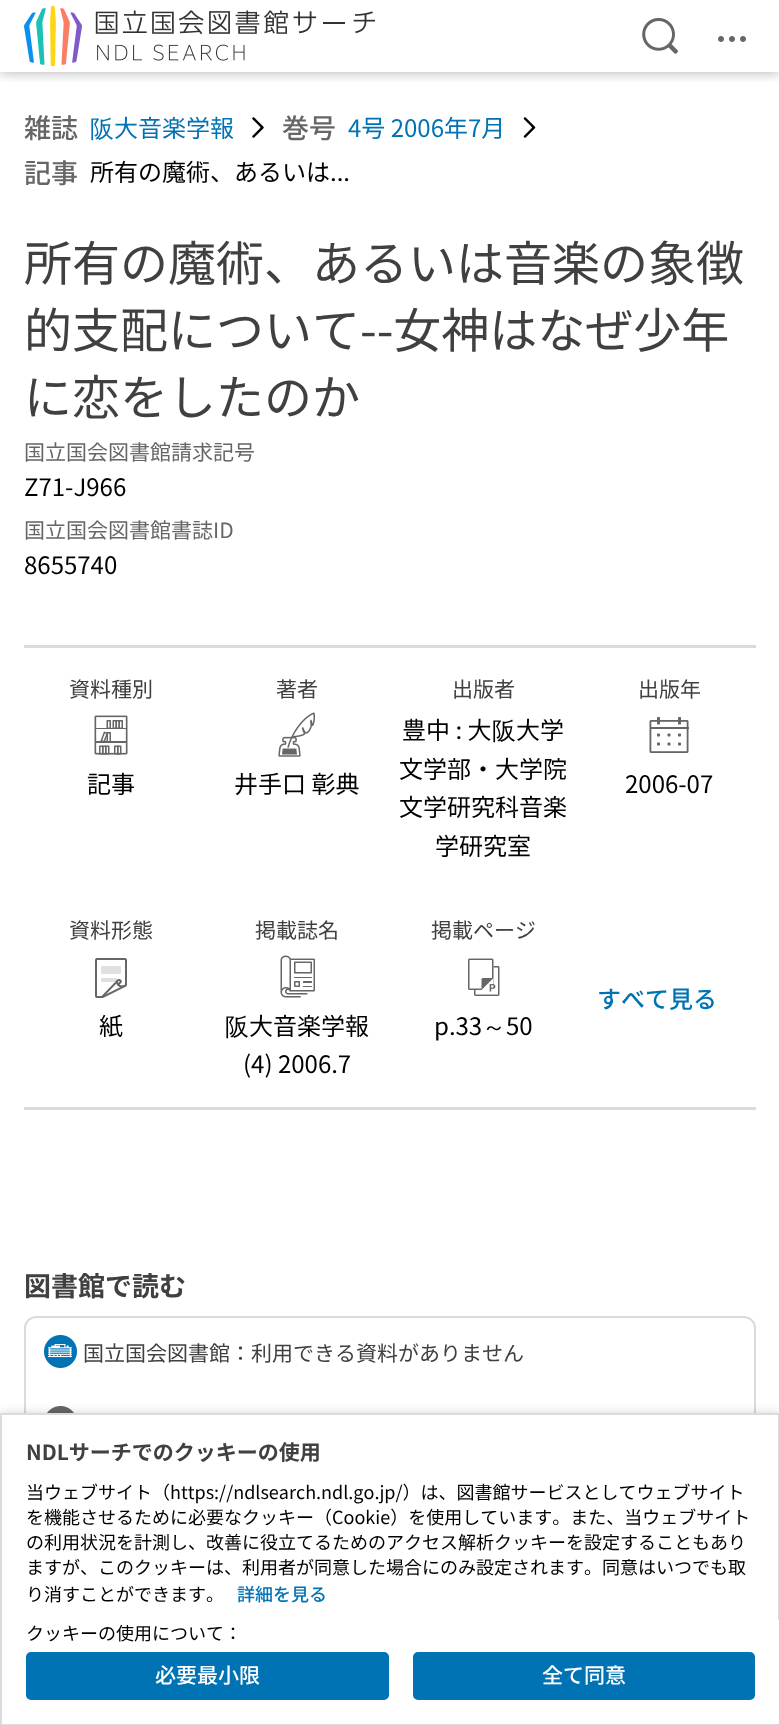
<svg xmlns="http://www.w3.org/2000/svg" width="779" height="1725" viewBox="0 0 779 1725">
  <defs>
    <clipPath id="clip1"><rect x="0" y="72" width="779" height="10"/></clipPath>
    <filter id="blur1" x="-50%" y="-200%" width="200%" height="500%"><feGaussianBlur stdDeviation="6"/></filter>
  </defs>
  <rect width="100%" height="100%" fill="#ffffff"/>
  <g clip-path="url(#clip1)">
    <rect x="0" y="2" width="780" height="72" fill="#000000" fill-opacity="0.24" filter="url(#blur1)"/>
  </g>
  <image x="24" y="6" width="351" height="60" href="img1.png"/>
  <image x="642" y="17" width="36" height="37" href="img2.png"/>
  <image x="718" y="36" width="28" height="6" href="img3.png"/>
  <text x="24" y="138" font-family="Noto Sans JP" font-size="27" font-weight="500" fill="#666666">雑誌</text>
  <text x="90" y="137" font-family="WenQuanYi Zen Hei" font-size="24" font-weight="500" fill="#0073b5">阪</text>
  <text x="114" y="137" font-family="Noto Sans JP" font-size="24" fill="#0073b5">大音楽学報</text>
  <image x="252" y="117" width="12" height="21" href="img4.png"/>
  <text x="282" y="138" font-family="Noto Sans JP" font-size="27" font-weight="500" fill="#666666">巻号</text>
  <text x="348" y="137" font-family="Noto Sans JP" font-size="24" fill="#0073b5">4号 2006年7月</text>
  <image x="523" y="117" width="13" height="21" href="img5.png"/>
  <text x="24" y="183" font-family="Noto Sans JP" font-size="27" font-weight="500" fill="#666666">記事</text>
  <text x="90" y="181" font-family="Noto Sans JP" font-size="24" fill="#000000">所有の魔術、あるいは...</text>
  <text x="24" y="281" font-family="Noto Sans JP" font-size="48" fill="#404040">所有の魔術、あるいは音楽の象徴</text>
  <text x="24" y="348" font-family="Noto Sans JP" font-size="48" fill="#404040">的支配について--女神はなぜ少年</text>
  <text x="24" y="415" font-family="Noto Sans JP" font-size="48" fill="#404040">に恋をしたのか</text>
  <text x="24" y="460" font-family="Noto Sans JP" font-size="21" fill="#666666">国立国会図書館請求記号</text>
  <text x="24" y="496" font-family="Noto Sans JP" font-size="24" fill="#000000">Z71-J966</text>
  <text x="24" y="538" font-family="Noto Sans JP" font-size="21" fill="#666666">国立国会図書館書誌ID</text>
  <text x="24" y="574" font-family="Noto Sans JP" font-size="24" fill="#000000">8655740</text>
  <rect x="24" y="645" width="732" height="3" fill="#dbdbdb"/>
  <text x="69" y="697" font-family="Noto Sans JP" font-size="21" fill="#404040">資料種別</text>
  <image x="94" y="715" width="34" height="40" href="img6.png"/>
  <text x="87" y="793" font-family="Noto Sans JP" font-size="24" fill="#000000">記事</text>
  <text x="276" y="697" font-family="Noto Sans JP" font-size="21" fill="#404040">著者</text>
  <image x="278" y="712" width="38" height="45" href="img7.png"/>
  <text x="234" y="793" font-family="Noto Sans JP" font-size="24" fill="#000000">井手口 彰典</text>
  <text x="452" y="697" font-family="Noto Sans JP" font-size="21" fill="#404040">出版者</text>
  <text x="402" y="739" font-family="Noto Sans JP" font-size="24" fill="#000000">豊中 : 大</text>
  <text x="492" y="739" font-family="WenQuanYi Zen Hei" font-size="24" font-weight="500" fill="#000000">阪</text>
  <text x="516" y="739" font-family="Noto Sans JP" font-size="24" fill="#000000">大学</text>
  <text x="399" y="778" font-family="Noto Sans JP" font-size="24" fill="#000000">文学部・大学院</text>
  <text x="399" y="816" font-family="Noto Sans JP" font-size="24" fill="#000000">文学研究科音楽</text>
  <text x="435" y="855" font-family="Noto Sans JP" font-size="24" fill="#000000">学研究室</text>
  <text x="638" y="697" font-family="Noto Sans JP" font-size="21" fill="#404040">出版年</text>
  <image x="649" y="717" width="40" height="36" href="img8.png"/>
  <text x="625" y="793" font-family="Noto Sans JP" font-size="24" fill="#000000">2006-07</text>
  <text x="69" y="938" font-family="Noto Sans JP" font-size="21" fill="#404040">資料形態</text>
  <image x="95" y="958" width="32" height="40" href="img9.png"/>
  <text x="99" y="1035" font-family="Noto Sans JP" font-size="24" fill="#000000">紙</text>
  <text x="255" y="938" font-family="Noto Sans JP" font-size="21" fill="#404040">掲載誌名</text>
  <image x="280" y="955" width="35" height="43" href="img10.png"/>
  <text x="225" y="1035" font-family="WenQuanYi Zen Hei" font-size="24" font-weight="500" fill="#000000">阪</text>
  <text x="249" y="1035" font-family="Noto Sans JP" font-size="24" fill="#000000">大音楽学報</text>
  <text x="243" y="1073" font-family="Noto Sans JP" font-size="24" fill="#000000">(4) 2006.7</text>
  <text x="431" y="938" font-family="Noto Sans JP" font-size="21" fill="#404040">掲載ページ</text>
  <image x="468" y="958" width="32" height="38" href="img11.png"/>
  <text x="434" y="1035" font-family="Noto Sans JP" font-size="24" fill="#000000">p.33</text>
  <text x="482" y="1035" font-family="WenQuanYi Zen Hei" font-size="24" font-weight="500" fill="#000000">～</text>
  <text x="506" y="1035" font-family="Noto Sans JP" font-size="24" fill="#000000">50</text>
  <text x="597" y="1008" font-family="Noto Sans JP" font-size="24" font-weight="500" fill="#0073b5">すべて見る</text>
  <rect x="24" y="1107" width="732" height="3" fill="#dbdbdb"/>
  <text x="24" y="1296" font-family="Noto Sans JP" font-size="27" font-weight="bold" fill="#404040">図書館で読む</text>
  <rect x="25" y="1317" width="730" height="218" rx="11" fill="none" stroke="#dbdbdb" stroke-width="2"/>
  <image x="44" y="1335" width="33" height="33" href="img12.png"/>
  <text x="83" y="1361" font-family="Noto Sans JP" font-size="21" fill="#404040">国立国会図書館：利用できる資料がありません</text>
  <image x="47" y="1406" width="27" height="7" href="img13.png"/>
  <rect x="0" y="1415" width="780" height="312" fill="#000000" fill-opacity="0.24" filter="url(#blur1)"/>
  <rect x="2" y="1415" width="776" height="205" fill="#ffffff"/>
  <rect x="1" y="1414" width="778" height="310" fill="none" stroke="#dbdbdb" stroke-width="2"/>
  <text x="26" y="1460" font-family="Noto Sans JP" font-size="21" font-weight="bold" fill="#404040">NDLサーチでのクッキーの使用</text>
  <text x="26" y="1499" font-family="Noto Sans JP" font-size="18" fill="#000000">当ウェブサイト（https://ndlsearch.ndl.go.jp/）は、図書館サービスとしてウェブサイト</text>
  <text x="26" y="1524" font-family="Noto Sans JP" font-size="18" fill="#000000">を機能させるために必要なクッキー（Cookie）を使用しています。また、当ウェブサイト</text>
  <text x="26" y="1549" font-family="Noto Sans JP" font-size="18" fill="#000000">の利用状況を計測し、改善に役立てるためのアクセス解析クッキーを設定することもあり</text>
  <text x="26" y="1574" font-family="Noto Sans JP" font-size="18" fill="#000000">ますが、このクッキーは、利用者が同意した場合にのみ設定されます。同意はいつでも取</text>
  <text x="26" y="1601" font-family="Noto Sans JP" font-size="18" fill="#000000">り消すことができます。</text>
  <text x="237" y="1601" font-family="Noto Sans JP" font-size="18" font-weight="500" fill="#0073b5">詳細を見る</text>
  <rect x="2" y="1620" width="777" height="104" fill="#ffffff"/>
  <text x="26" y="1640" font-family="Noto Sans JP" font-size="18" fill="#000000">クッキーの使用について：</text>
  <rect x="27" y="1653" width="361" height="46" rx="4" fill="#0073b5" stroke="#0073b5" stroke-width="2"/>
  <text x="155" y="1683" font-family="Noto Sans JP" font-size="21" font-weight="500" fill="#ffffff">必要最小限</text>
  <rect x="414" y="1653" width="340" height="46" rx="4" fill="#0073b5" stroke="#0073b5" stroke-width="2"/>
  <text x="542" y="1683" font-family="Noto Sans JP" font-size="21" font-weight="500" fill="#ffffff">全て同意</text>
</svg>
